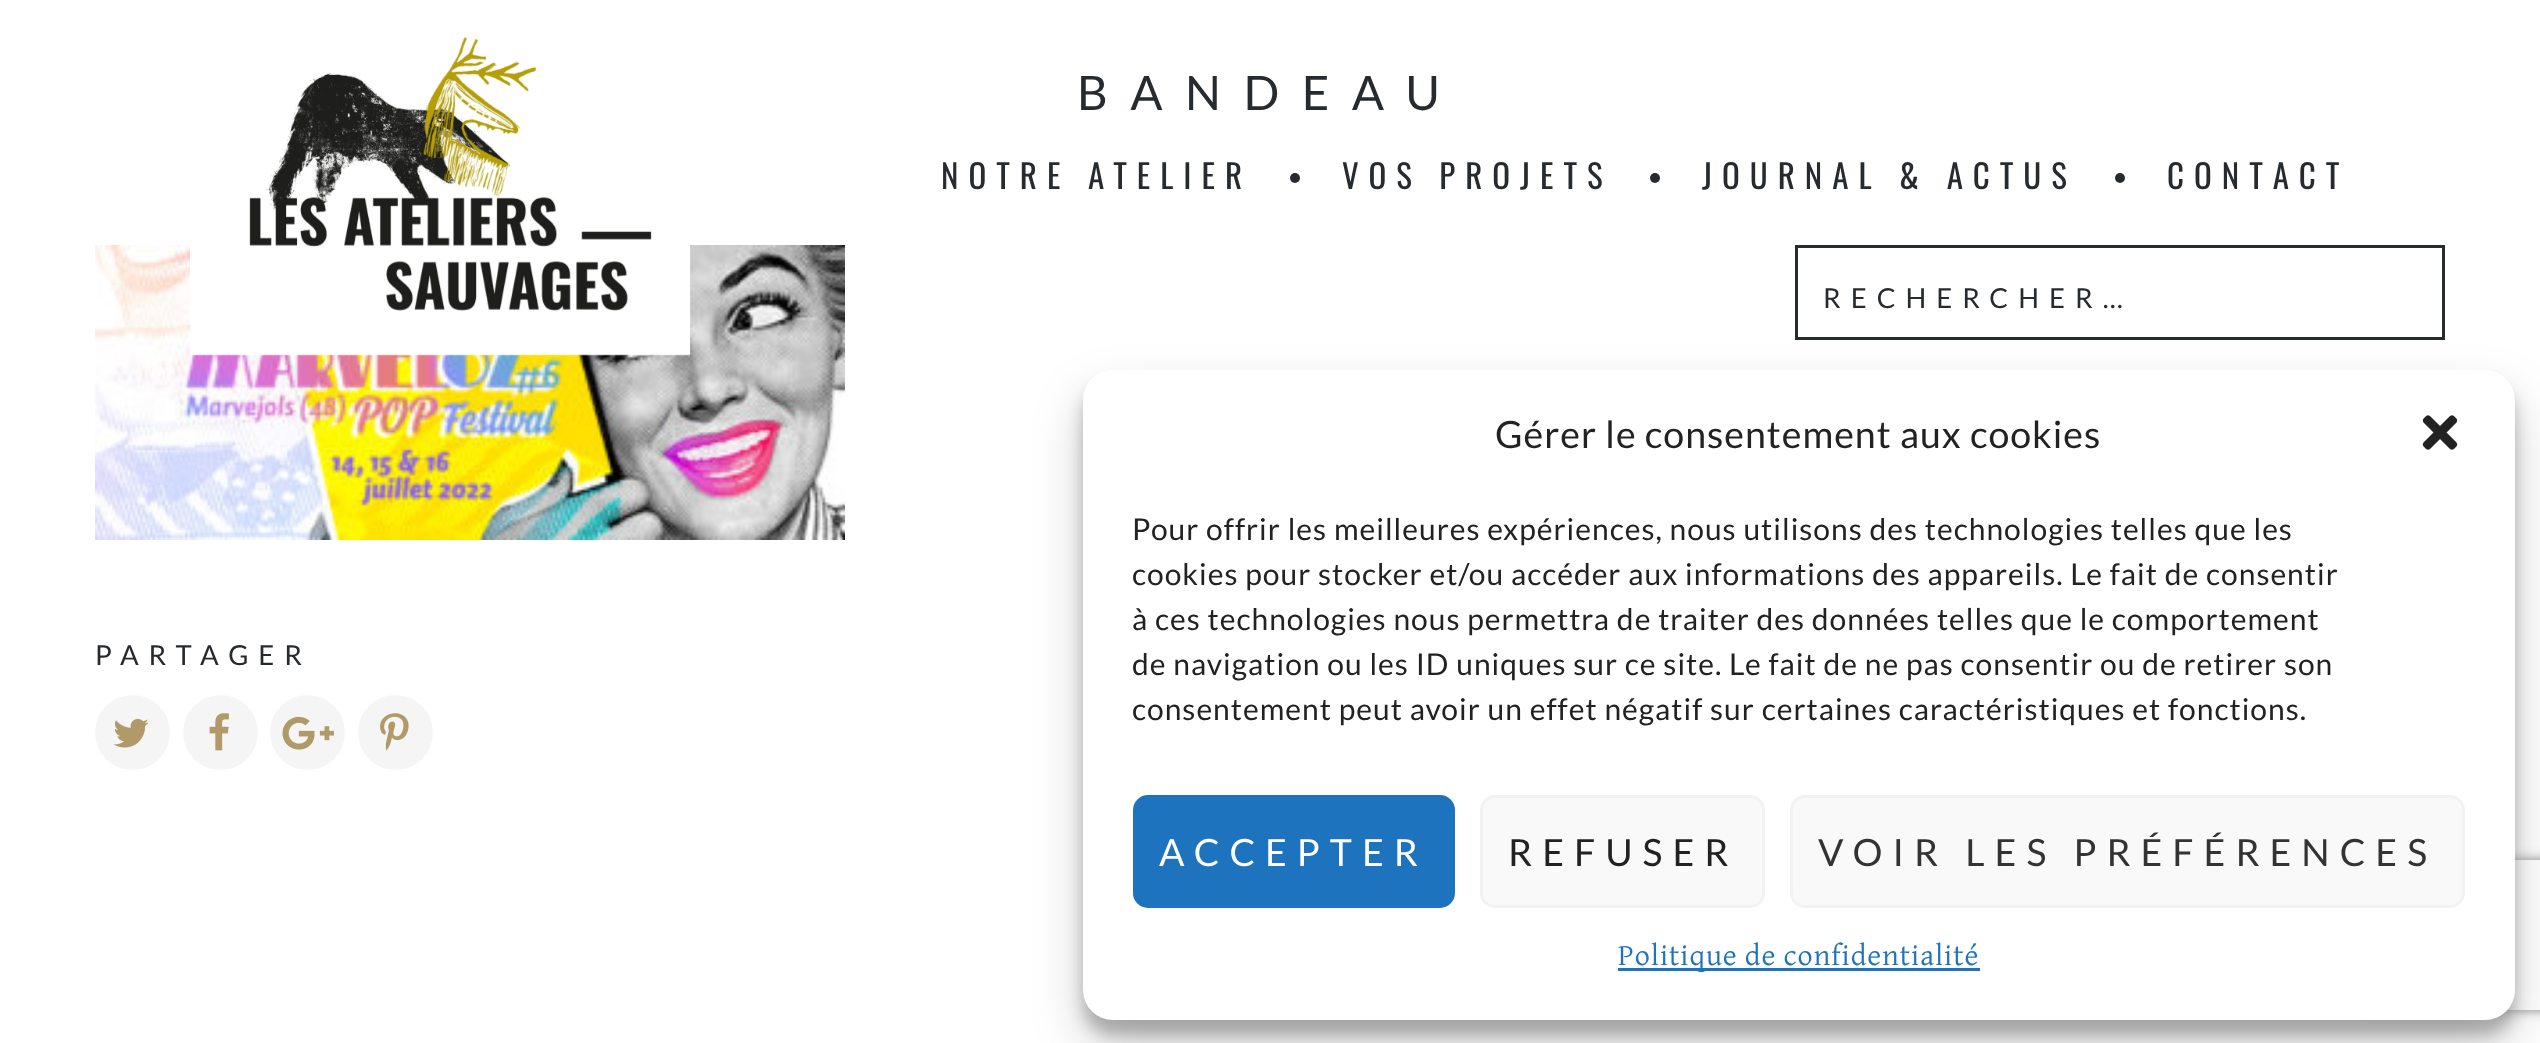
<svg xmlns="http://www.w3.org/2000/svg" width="2540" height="1043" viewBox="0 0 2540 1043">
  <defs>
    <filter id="blur1" x="-50%" y="-200%" width="200%" height="500%"><feGaussianBlur stdDeviation="7.5"/></filter>
    <filter id="blur2" x="-50%" y="-200%" width="200%" height="500%"><feGaussianBlur stdDeviation="25"/></filter>
    <clipPath id="clip1"><path d="M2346 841H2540V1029H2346ZM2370 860H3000C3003 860 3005 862 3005 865V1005C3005 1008 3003 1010 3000 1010H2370C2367 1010 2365 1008 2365 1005V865C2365 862 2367 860 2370 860Z" clip-rule="evenodd"/></clipPath>
    <filter id="blur3" x="-50%" y="-200%" width="200%" height="500%"><feGaussianBlur stdDeviation="6"/></filter>
    <clipPath id="clip2"><rect x="1133" y="508" width="1332" height="237"/></clipPath>
  </defs>
  <rect width="100%" height="100%" fill="#ffffff"/>
  <text x="1077" y="110" font-family="Lato" font-size="47.5" letter-spacing="22.5" fill="#272b2f">BANDEAU</text>
  <image x="95" y="245" width="750" height="295" href="img2.png"/>
  <image x="190" y="37" width="501" height="319" href="img1.png"/>
  <text x="941" y="189" font-family="Oswald" font-size="33" letter-spacing="10" fill="#272b2f">NOTRE ATELIER</text>
  <circle cx="1295" cy="178" r="5" fill="#272b2f"/>
  <text x="1342" y="189" font-family="Oswald" font-size="33" letter-spacing="10" fill="#272b2f">VOS PROJETS</text>
  <circle cx="1655" cy="178" r="5" fill="#272b2f"/>
  <text x="1702" y="189" font-family="Oswald" font-size="33" letter-spacing="10" fill="#272b2f">JOURNAL &amp; ACTUS</text>
  <circle cx="2120" cy="178" r="5" fill="#272b2f"/>
  <text x="2167" y="189" font-family="Oswald" font-size="33" letter-spacing="10" fill="#272b2f">CONTACT</text>
  <rect x="1796.5" y="246.5" width="647" height="92" fill="none" stroke="#272b2f" stroke-width="3"/>
  <text x="1823" y="308" font-family="Lato" font-size="27.5" letter-spacing="10" fill="#272b2f">RECHERCHER…</text>
  <text x="95" y="665" font-family="Lato" font-size="27.5" letter-spacing="10" fill="#272b2f">PARTAGER</text>
  <circle cx="132.5" cy="732.5" r="37.5" fill="#f5f5f5"/>
  <image x="113" y="718" width="36" height="30" href="img3.png"/>
  <circle cx="220.5" cy="732.5" r="37.5" fill="#f5f5f5"/>
  <image x="209" y="713" width="20" height="38" href="img4.png"/>
  <circle cx="307.5" cy="732.5" r="37.5" fill="#f5f5f5"/>
  <image x="282" y="716" width="52" height="34" href="img5.png"/>
  <circle cx="395.5" cy="732.5" r="37.5" fill="#f5f5f5"/>
  <image x="380" y="713" width="29" height="38" href="img6.png"/>
  <rect x="1083" y="385" width="1432" height="650" rx="30" fill="#000000" fill-opacity="0.23" filter="url(#blur1)"/>
  <rect x="1083" y="395" width="1432" height="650" rx="30" fill="#000000" fill-opacity="0.19" filter="url(#blur2)"/>
  <g clip-path="url(#clip1)">
    <rect x="2365" y="860" width="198" height="150" rx="5" fill="#808080" filter="url(#blur3)"/>
  </g>
  <rect x="1083" y="370" width="1432" height="650" rx="30" fill="#ffffff"/>
  <text x="1495" y="448" font-family="Lato" font-size="37.5" letter-spacing="1" fill="#222222">Gérer le consentement aux cookies</text>
  <image x="2422" y="415" width="36" height="35" href="img7.png"/>
  <text x="1132" y="540" font-family="Lato" font-size="30" letter-spacing="1" fill="#222222">Pour offrir les meilleures expériences, nous utilisons des technologies telles que les</text>
  <text x="1132" y="585" font-family="Lato" font-size="30" letter-spacing="1" fill="#222222">cookies pour stocker et/ou accéder aux informations des appareils. Le fait de consentir</text>
  <text x="1132" y="630" font-family="Lato" font-size="30" letter-spacing="1" fill="#222222">à ces technologies nous permettra de traiter des données telles que le comportement</text>
  <g clip-path="url(#clip2)">
    <text x="1132" y="675" font-family="Lato" font-size="30" letter-spacing="1" fill="#222222">de navigation ou les ID uniques sur ce site. Le fait de ne pas consentir ou de retirer son</text>
  </g>
  <text x="1132" y="720" font-family="Lato" font-size="30" letter-spacing="1" fill="#222222">consentement peut avoir un effet négatif sur certaines caractéristiques et fonctions.</text>
  <rect x="1134.5" y="796.5" width="319" height="110" rx="13.5" fill="#1e73be" stroke="#1e73be" stroke-width="3"/>
  <text x="1159" y="866" font-family="Lato" font-size="37.5" letter-spacing="10" fill="#ffffff">ACCEPTER</text>
  <rect x="1481.5" y="796.5" width="282" height="110" rx="13.5" fill="#f9f9f9" stroke="#f2f2f2" stroke-width="3"/>
  <text x="1508" y="866" font-family="Lato" font-size="37.5" letter-spacing="10" fill="#222222">REFUSER</text>
  <rect x="1791.5" y="796.5" width="672" height="110" rx="13.5" fill="#f9f9f9" stroke="#f2f2f2" stroke-width="3"/>
  <text x="1818" y="866" font-family="Lato" font-size="37.5" letter-spacing="10" fill="#333333">VOIR LES PRÉFÉRENCES</text>
  <rect x="1618" y="968" width="362" height="3" fill="#1e73be"/>
  <text x="1618" y="965" font-family="David Libre" font-size="30" letter-spacing="1" fill="#1e73be">Politique de confidentialité</text>
</svg>
